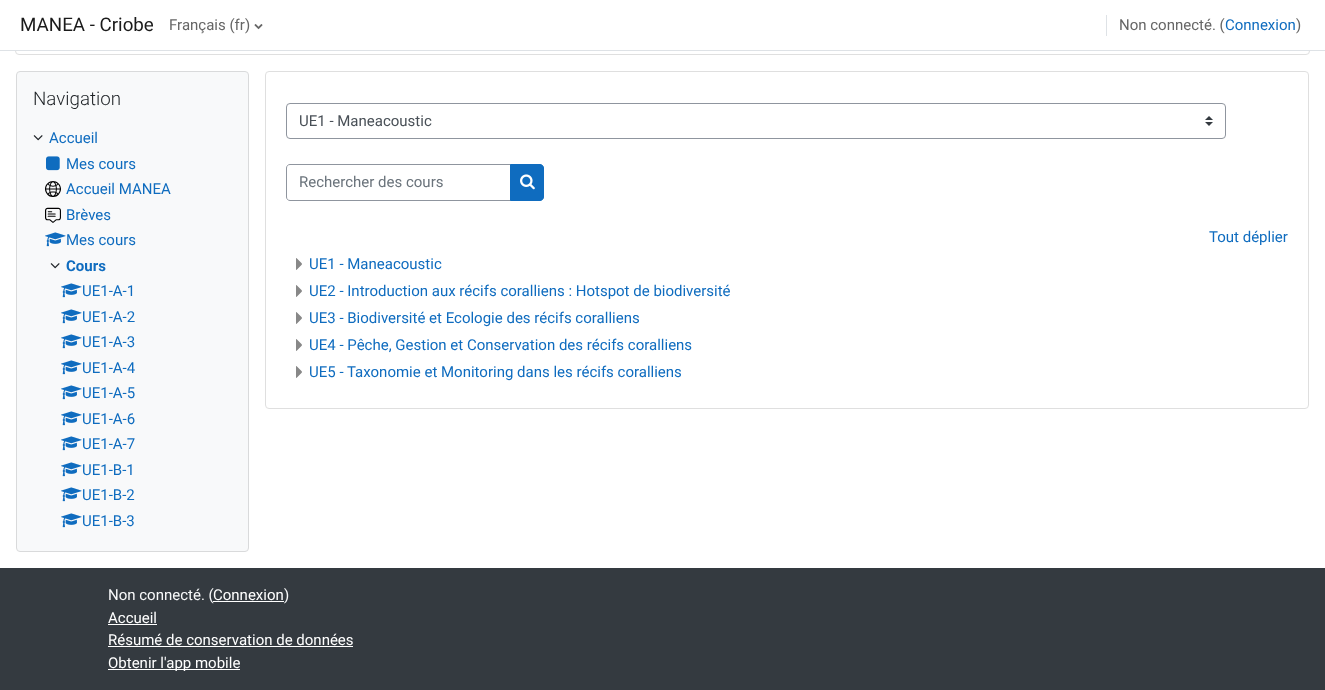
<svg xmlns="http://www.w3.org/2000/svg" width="1325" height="690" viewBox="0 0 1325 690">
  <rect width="100%" height="100%" fill="#ffffff"/>
  <rect x="15.5" y="-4.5" width="1294" height="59" rx="3.5" fill="none" stroke="#dfdfdf"/>
  <rect x="15" y="0" width="1295" height="50" fill="#ffffff"/>
  <rect x="0" y="50" width="1325" height="1" fill="#dee2e6"/>
  <text x="20" y="31" font-family="Roboto" font-size="18.75" fill="#1a1a1a">MANEA - Criobe</text>
  <text x="169" y="30" font-family="Roboto" font-size="15" fill="#666666">Français (fr)</text>
  <image x="254" y="24" width="9" height="6" href="img1.png"/>
  <rect x="1106" y="15" width="1" height="21" fill="#dee2e6"/>
  <text x="1119" y="30" font-family="Roboto" font-size="15" fill="#666666">Non connecté. (</text>
  <text x="1225" y="30" font-family="Roboto" font-size="15" fill="#0f6cbf">Connexion</text>
  <text x="1296" y="30" font-family="Roboto" font-size="15" fill="#666666">)</text>
  <rect x="16.5" y="71.5" width="232" height="480" rx="3.5" fill="#f8f9fa" stroke="#d9dadb"/>
  <text x="33" y="105" font-family="Roboto" font-size="18.75" font-weight="300" fill="#1d2125">Navigation</text>
  <image x="33" y="135" width="10" height="6" href="img2.png"/>
  <text x="49" y="143" font-family="Roboto" font-size="15" fill="#0f6cbf">Accueil</text>
  <image x="46" y="156" width="14" height="15" href="img3.png"/>
  <text x="66" y="169" font-family="Roboto" font-size="15" fill="#0f6cbf">Mes cours</text>
  <image x="45" y="181" width="16" height="16" href="img4.png"/>
  <text x="66" y="194" font-family="Roboto" font-size="15" fill="#0f6cbf">Accueil MANEA</text>
  <image x="45" y="207" width="16" height="16" href="img5.png"/>
  <text x="66" y="220" font-family="Roboto" font-size="15" fill="#0f6cbf">Brèves</text>
  <image x="45" y="232" width="21" height="15" href="img6.png"/>
  <text x="66" y="245" font-family="Roboto" font-size="15" fill="#0f6cbf">Mes cours</text>
  <image x="50" y="263" width="10" height="6" href="img2.png"/>
  <text x="66" y="271" font-family="Roboto" font-size="15" font-weight="bold" fill="#0f6cbf">Cours</text>
  <image x="61" y="283" width="21" height="15" href="img6.png"/>
  <text x="82" y="296" font-family="Roboto" font-size="15" fill="#0f6cbf">UE1-A-1</text>
  <image x="61" y="309" width="21" height="15" href="img6.png"/>
  <text x="82" y="322" font-family="Roboto" font-size="15" fill="#0f6cbf">UE1-A-2</text>
  <image x="61" y="334" width="21" height="15" href="img6.png"/>
  <text x="82" y="347" font-family="Roboto" font-size="15" fill="#0f6cbf">UE1-A-3</text>
  <image x="61" y="360" width="21" height="15" href="img6.png"/>
  <text x="82" y="373" font-family="Roboto" font-size="15" fill="#0f6cbf">UE1-A-4</text>
  <image x="61" y="385" width="21" height="15" href="img6.png"/>
  <text x="82" y="398" font-family="Roboto" font-size="15" fill="#0f6cbf">UE1-A-5</text>
  <image x="61" y="411" width="21" height="15" href="img6.png"/>
  <text x="82" y="424" font-family="Roboto" font-size="15" fill="#0f6cbf">UE1-A-6</text>
  <image x="61" y="436" width="21" height="15" href="img6.png"/>
  <text x="82" y="449" font-family="Roboto" font-size="15" fill="#0f6cbf">UE1-A-7</text>
  <image x="61" y="462" width="21" height="15" href="img6.png"/>
  <text x="82" y="475" font-family="Roboto" font-size="15" fill="#0f6cbf">UE1-B-1</text>
  <image x="61" y="487" width="21" height="15" href="img6.png"/>
  <text x="82" y="500" font-family="Roboto" font-size="15" fill="#0f6cbf">UE1-B-2</text>
  <image x="61" y="513" width="21" height="15" href="img6.png"/>
  <text x="82" y="526" font-family="Roboto" font-size="15" fill="#0f6cbf">UE1-B-3</text>
  <rect x="265.5" y="71.5" width="1043" height="337" rx="3.5" fill="none" stroke="#dfdfdf"/>
  <image x="1205" y="116" width="8" height="10" href="img7.png"/>
  <rect x="286.5" y="103.5" width="939" height="35" rx="3.5" fill="none" stroke="#8f959e"/>
  <text x="299" y="126" font-family="Roboto" font-size="15" fill="#495057">UE1 - Maneacoustic</text>
  <path d="M290 164.5H510.5V200.5H290C288 200.5 286.5 199 286.5 197V168C286.5 166 288 164.5 290 164.5Z" fill="none" stroke="#8f959e"/>
  <text x="299" y="187" font-family="Roboto" font-size="15" fill="#6a737b">Rechercher des cours</text>
  <path d="M510.5 164.5H540C542 164.5 543.5 166 543.5 168V197C543.5 199 542 200.5 540 200.5H510.5Z" fill="#0f6cbf" stroke="#0f6cbf"/>
  <image x="520" y="174" width="15" height="16" href="img8.png"/>
  <text x="1209" y="242" font-family="Roboto" font-size="15" fill="#0f6cbf">Tout déplier</text>
  <image x="296" y="258" width="6" height="12" href="img9.png"/>
  <text x="309" y="269" font-family="Roboto" font-size="15" fill="#0f6cbf">UE1 - Maneacoustic</text>
  <image x="296" y="285" width="6" height="12" href="img9.png"/>
  <text x="309" y="296" font-family="Roboto" font-size="15" fill="#0f6cbf">UE2 - Introduction aux récifs coralliens : Hotspot de biodiversité</text>
  <image x="296" y="312" width="6" height="12" href="img9.png"/>
  <text x="309" y="323" font-family="Roboto" font-size="15" fill="#0f6cbf">UE3 - Biodiversité et Ecologie des récifs coralliens</text>
  <image x="296" y="339" width="6" height="12" href="img9.png"/>
  <text x="309" y="350" font-family="Roboto" font-size="15" fill="#0f6cbf">UE4 - Pêche, Gestion et Conservation des récifs coralliens</text>
  <image x="296" y="366" width="6" height="12" href="img10.png"/>
  <text x="309" y="377" font-family="Roboto" font-size="15" fill="#0f6cbf">UE5 - Taxonomie et Monitoring dans les récifs coralliens</text>
  <rect x="0" y="568" width="1325" height="122" fill="#343a40"/>
  <text x="108" y="600" font-family="Roboto" font-size="15" fill="#f8f9fa">Non connecté. (</text>
  <text x="213" y="600" font-family="Roboto" font-size="15" fill="#ffffff">Connexion</text>
  <rect x="213" y="601" width="71" height="1" fill="#ffffff"/>
  <text x="284" y="600" font-family="Roboto" font-size="15" fill="#f8f9fa">)</text>
  <text x="108" y="623" font-family="Roboto" font-size="15" fill="#ffffff">Accueil</text>
  <rect x="108" y="624" width="49" height="1" fill="#ffffff"/>
  <text x="108" y="645" font-family="Roboto" font-size="15" fill="#ffffff">Résumé de conservation de données</text>
  <rect x="108" y="646" width="245" height="1" fill="#ffffff"/>
  <rect x="108" y="669" width="132" height="1" fill="#ffffff"/>
  <text x="108" y="668" font-family="Roboto" font-size="15" fill="#ffffff">Obtenir l'app mobile</text>
</svg>
